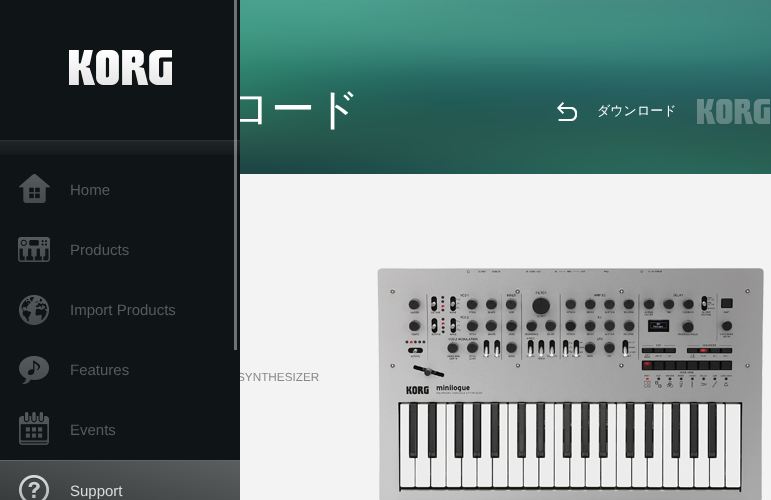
<svg xmlns="http://www.w3.org/2000/svg" width="771" height="500" viewBox="0 0 771 500">
  <defs>
    <linearGradient id="g1" gradientUnits="userSpaceOnUse" x1="106" y1="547" x2="134" y2="435"><stop offset="0" stop-color="#323536"/><stop offset="1" stop-color="#5b5e5f"/></linearGradient>
  </defs>
  <rect width="100%" height="100%" fill="#f3f3f3"/>
  <text x="237" y="381" font-family="Liberation Sans" font-size="11.75" fill="#87898a">SYNTHESIZER</text>
  <rect x="0" y="141" width="240" height="319" fill="#0f1416"/>
  <image x="0" y="141" width="240" height="14" href="img1.png"/>
  <image x="240" y="0" width="531" height="174" href="img9.png"/>
  <text x="226" y="124" font-family="WenQuanYi Zen Hei" font-size="44" font-weight="500" fill="#ffffff">ロード</text>
  <rect x="0" y="0" width="240" height="140" fill="#0f1416"/>
  <rect x="0" y="140" width="240" height="1" fill="#2d3133"/>
  <image x="69" y="50" width="103" height="36" href="img2.png"/>
  <image x="19" y="174" width="31" height="29" href="img3.png"/>
  <text x="70" y="195" font-family="Liberation Sans" font-size="15" fill="#575b5c">Home</text>
  <image x="18" y="237" width="32" height="25" href="img4.png"/>
  <text x="70" y="255" font-family="Liberation Sans" font-size="15" fill="#575b5c">Products</text>
  <image x="19" y="295" width="30" height="30" href="img5.png"/>
  <text x="70" y="315" font-family="Liberation Sans" font-size="15" fill="#575b5c">Import Products</text>
  <image x="19" y="356" width="30" height="28" href="img6.png"/>
  <text x="70" y="375" font-family="Liberation Sans" font-size="15" fill="#575b5c">Features</text>
  <image x="19" y="412" width="30" height="33" href="img7.png"/>
  <text x="70" y="435" font-family="Liberation Sans" font-size="15" fill="#575b5c">Events</text>
  <rect x="0" y="461" width="240" height="39" fill="url(#g1)"/>
  <rect x="0" y="460" width="240" height="1" fill="#616465"/>
  <image x="19" y="475" width="30" height="25" href="img8.png"/>
  <text x="70" y="496" font-family="Liberation Sans" font-size="15" fill="#dadada">Support</text>
  <rect x="234" y="0" width="3" height="350" fill="#ffffff" fill-opacity="0.4"/>
  <image x="557" y="102" width="20" height="19" href="img10.png"/>
  <text x="597" y="115" font-family="WenQuanYi Zen Hei" font-size="13" font-weight="500" fill="#ffffff">ダウンロード</text>
  <image x="697" y="99" width="73" height="25" href="img11.png"/>
  <image x="377" y="268" width="387" height="232" href="img12.png"/>
</svg>
